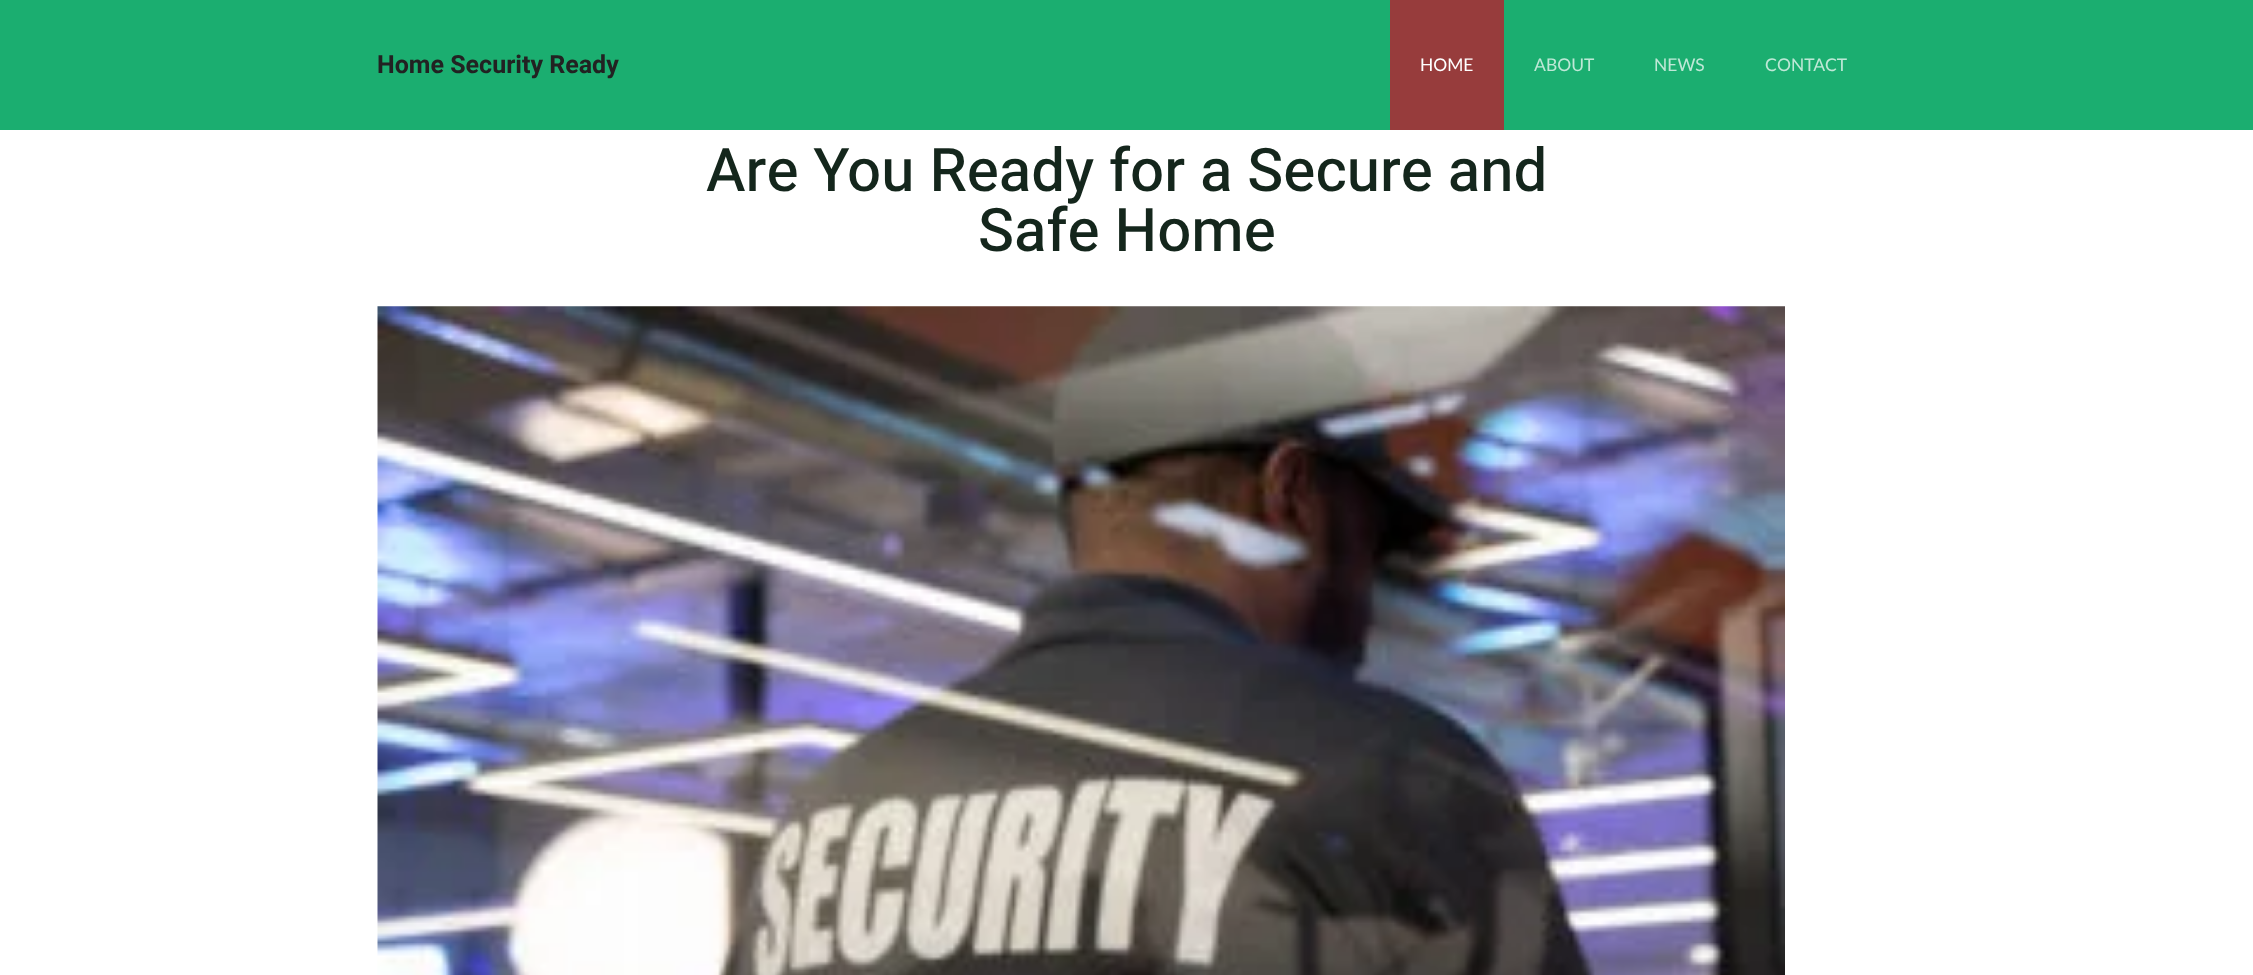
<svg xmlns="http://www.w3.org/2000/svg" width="2253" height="975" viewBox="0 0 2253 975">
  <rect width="100%" height="100%" fill="#ffffff"/>
  <rect x="0" y="0" width="2253" height="130" fill="#1bae70"/>
  <text x="377" y="73" font-family="Heebo" font-size="25" font-weight="bold" fill="#222222">Home Security Ready</text>
  <rect x="1390" y="0" width="114" height="130" fill="#973c3c"/>
  <text x="1420" y="71" font-family="Lato" font-size="17.5" fill="#ffffff">HOME</text>
  <text x="1534" y="71" font-family="Lato" font-size="17.5" fill="#bfe8d7">ABOUT</text>
  <text x="1654" y="71" font-family="Lato" font-size="17.5" fill="#bfe8d7">NEWS</text>
  <text x="1765" y="71" font-family="Lato" font-size="17.5" fill="#bfe8d7">CONTACT</text>
  <text x="706" y="191" font-family="Heebo" font-size="60" font-weight="500" fill="#14261c">Are You Ready for a Secure and</text>
  <text x="978" y="251" font-family="Heebo" font-size="60" font-weight="500" fill="#14261c">Safe Home</text>
  <image x="377" y="306" width="1408" height="669" href="img1.png"/>
</svg>
